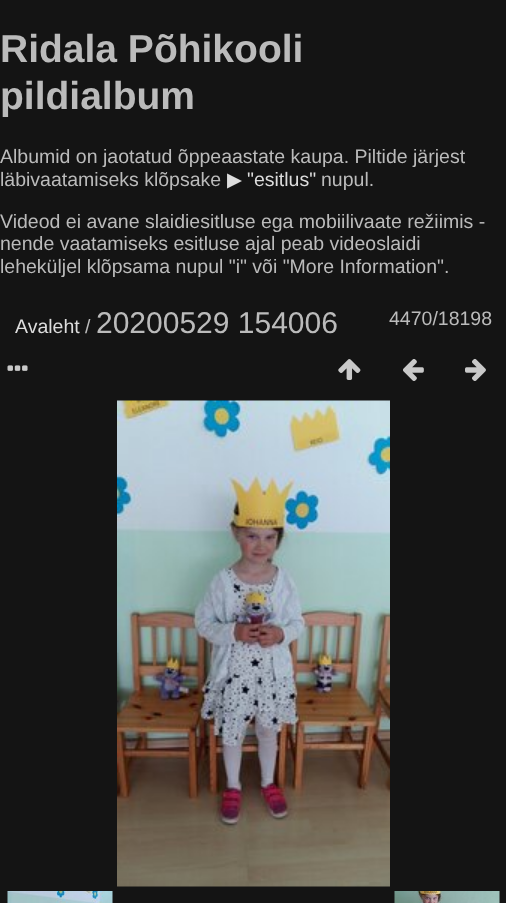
<svg xmlns="http://www.w3.org/2000/svg" width="506" height="903" viewBox="0 0 506 903">
  <rect width="100%" height="100%" fill="#141414"/>
  <text x="0" y="62" font-family="Liberation Sans" font-size="39" font-weight="bold" fill="#bbbbbb">Ridala Põhikooli</text>
  <text x="0" y="109" font-family="Liberation Sans" font-size="39" font-weight="bold" fill="#bbbbbb">pildialbum</text>
  <text x="0" y="163" font-family="Liberation Sans" font-size="19.5" fill="#bbbbbb">Albumid on jaotatud õppeaastate kaupa. Piltide järjest</text>
  <text x="0" y="186" font-family="Liberation Sans" font-size="19.5" fill="#bbbbbb">läbivaatamiseks klõpsake</text>
  <text x="227" y="186" font-family="DejaVu Sans" font-size="19.5" fill="#dddddd">▶</text>
  <text x="247" y="186" font-family="Liberation Sans" font-size="19.5" fill="#dddddd">"esitlus"</text>
  <text x="321" y="186" font-family="Liberation Sans" font-size="19.5" fill="#bbbbbb">nupul.</text>
  <text x="0" y="228" font-family="Liberation Sans" font-size="19.5" fill="#bbbbbb">Videod ei avane slaidiesitluse ega mobiilivaate režiimis -</text>
  <text x="0" y="250" font-family="Liberation Sans" font-size="19.5" fill="#bbbbbb">nende vaatamiseks esitluse ajal peab videoslaidi</text>
  <text x="0" y="273" font-family="Liberation Sans" font-size="19.5" fill="#bbbbbb">leheküljel klõpsama nupul "i" või "More Information".</text>
  <text x="15" y="333" font-family="Liberation Sans" font-size="19.5" fill="#dddddd">Avaleht</text>
  <text x="85" y="333" font-family="Liberation Sans" font-size="19.5" fill="#bbbbbb">/</text>
  <text x="96" y="333" font-family="Liberation Sans" font-size="30" fill="#bbbbbb">20200529 154006</text>
  <text x="389" y="325" font-family="Liberation Sans" font-size="19.5" fill="#bbbbbb">4470/18198</text>
  <image x="7" y="365" width="21" height="6" href="img1.png"/>
  <image x="338" y="359" width="23" height="21" href="img2.png"/>
  <image x="403" y="359" width="21" height="22" href="img3.png"/>
  <image x="465" y="358" width="21" height="23" href="img4.png"/>
  <image x="117" y="400" width="273" height="487" href="img5.png"/>
  <image x="7" y="891" width="106" height="12" href="img6.png"/>
  <image x="394" y="891" width="106" height="12" href="img7.png"/>
</svg>
